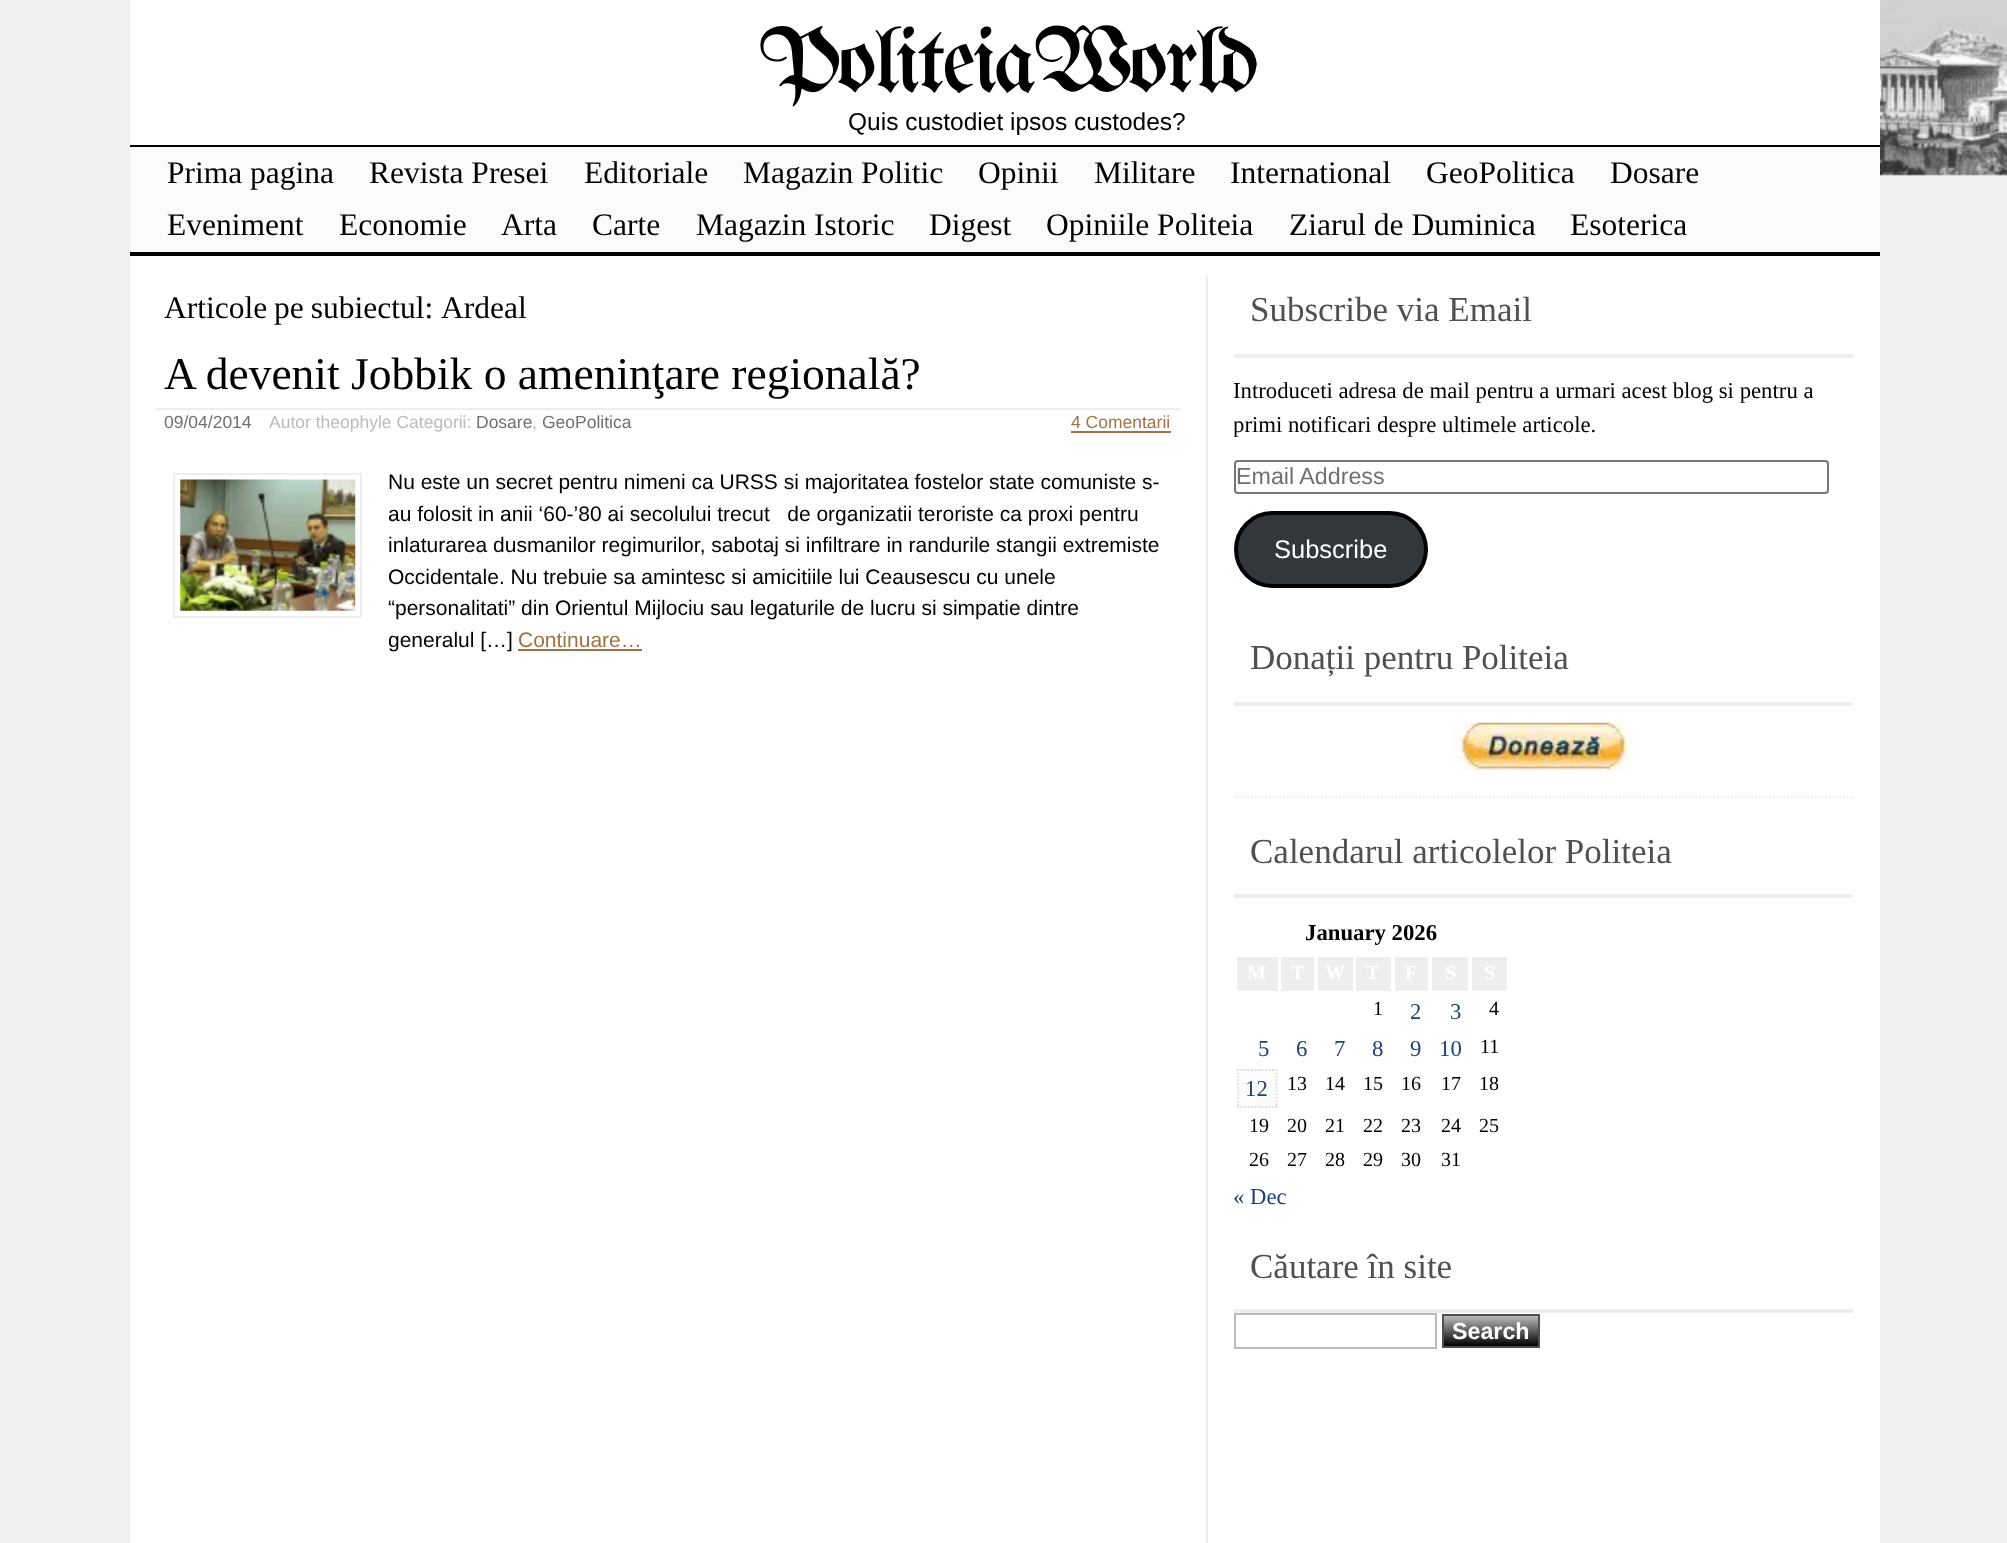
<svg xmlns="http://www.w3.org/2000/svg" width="2007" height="1543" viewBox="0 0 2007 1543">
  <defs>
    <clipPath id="clip1"><rect x="1234" y="275" width="619" height="331"/></clipPath>
    <linearGradient id="g1" gradientUnits="userSpaceOnUse" x1="1444" y1="1316" x2="1444" y2="1346"><stop offset="0" stop-color="#bbbbbb"/><stop offset="1" stop-color="#000000"/></linearGradient>
  </defs>
  <rect width="100%" height="100%" fill="#f0f0f0"/>
  <image x="1880" y="0" width="127" height="176" href="img1.png"/>
  <rect x="130" y="0" width="1750" height="1543" fill="#ffffff"/>
  <text x="759" y="91" font-family="UnifrakturMaguntia" font-size="92.75" letter-spacing="-3.5" fill="#000000">PoliteiaWorld</text>
  <text x="848" y="130" font-family="Liberation Sans" font-size="24.5" fill="#000000">Quis custodiet ipsos custodes?</text>
  <rect x="130" y="147" width="1750" height="105" fill="#fbfbfb"/>
  <rect x="130" y="145" width="1750" height="2" fill="#000000"/>
  <rect x="130" y="252" width="1750" height="4" fill="#000000"/>
  <text x="167" y="183" font-family="Liberation Serif" font-size="31.5" fill="#000000">Prima pagina</text>
  <text x="369" y="183" font-family="Liberation Serif" font-size="31.5" fill="#000000">Revista Presei</text>
  <text x="584" y="183" font-family="Liberation Serif" font-size="31.5" fill="#000000">Editoriale</text>
  <text x="743" y="183" font-family="Liberation Serif" font-size="31.5" fill="#000000">Magazin Politic</text>
  <text x="978" y="183" font-family="Liberation Serif" font-size="31.5" fill="#000000">Opinii</text>
  <text x="1094" y="183" font-family="Liberation Serif" font-size="31.5" fill="#000000">Militare</text>
  <text x="1230" y="183" font-family="Liberation Serif" font-size="31.5" fill="#000000">International</text>
  <text x="1426" y="183" font-family="Liberation Serif" font-size="31.5" fill="#000000">GeoPolitica</text>
  <text x="1610" y="183" font-family="Liberation Serif" font-size="31.5" fill="#000000">Dosare</text>
  <text x="167" y="235" font-family="Liberation Serif" font-size="31.5" fill="#000000">Eveniment</text>
  <text x="339" y="235" font-family="Liberation Serif" font-size="31.5" fill="#000000">Economie</text>
  <text x="501" y="235" font-family="Liberation Serif" font-size="31.5" fill="#000000">Arta</text>
  <text x="592" y="235" font-family="Liberation Serif" font-size="31.5" fill="#000000">Carte</text>
  <text x="696" y="235" font-family="Liberation Serif" font-size="31.5" fill="#000000">Magazin Istoric</text>
  <text x="929" y="235" font-family="Liberation Serif" font-size="31.5" fill="#000000">Digest</text>
  <text x="1046" y="235" font-family="Liberation Serif" font-size="31.5" fill="#000000">Opiniile Politeia</text>
  <text x="1289" y="235" font-family="Liberation Serif" font-size="31.5" fill="#000000">Ziarul de Duminica</text>
  <text x="1570" y="235" font-family="Liberation Serif" font-size="31.5" fill="#000000">Esoterica</text>
  <text x="164" y="318" word-spacing="-1" font-family="Liberation Serif" font-size="31.5" fill="#000000">Articole pe subiectul:</text>
  <text x="441" y="318" font-family="Liberation Serif" font-size="31.5" fill="#000000">Ardeal</text>
  <text x="164" y="389" font-family="Liberation Serif" font-size="45.5" fill="#000000">A devenit Jobbik o ameninţare regională?</text>
  <rect x="156" y="408" width="1024" height="2" fill="#eeeeee"/>
  <text x="164" y="428" font-family="Liberation Sans" font-size="17.5" fill="#707070">09/04/2014</text>
  <text x="269" y="428" font-family="Liberation Sans" font-size="17.5" fill="#bbbbbb">Autor theophyle Categorii:</text>
  <text x="476" y="428" font-family="Liberation Sans" font-size="17.5" fill="#707070">Dosare</text>
  <text x="532" y="428" font-family="Liberation Sans" font-size="17.5" fill="#bbbbbb">,</text>
  <text x="542" y="428" font-family="Liberation Sans" font-size="17.5" fill="#707070">GeoPolitica</text>
  <text x="1071" y="428" font-family="Liberation Sans" font-size="17.5" fill="#a17244">4 Comentarii</text>
  <rect x="1071" y="431" width="100" height="2" fill="#a17244"/>
  <rect x="174" y="474" width="187" height="143" fill="none" stroke="#eeeeee" stroke-width="2"/>
  <image x="180" y="479" width="176" height="132" href="img2.png"/>
  <text x="388" y="489" font-family="Liberation Sans" font-size="21" fill="#000000">Nu este un secret pentru nimeni ca URSS si majoritatea fostelor state comuniste s-</text>
  <text x="388" y="521" font-family="Liberation Sans" font-size="21" fill="#000000" xml:space="preserve">au folosit in anii ‘60-’80 ai secolului trecut   de organizatii teroriste ca proxi pentru</text>
  <text x="388" y="552" font-family="Liberation Sans" font-size="21" fill="#000000">inlaturarea dusmanilor regimurilor, sabotaj si infiltrare in randurile stangii extremiste</text>
  <text x="388" y="584" font-family="Liberation Sans" font-size="21" fill="#000000">Occidentale. Nu trebuie sa amintesc si amicitiile lui Ceausescu cu unele</text>
  <text x="388" y="615" font-family="Liberation Sans" font-size="21" fill="#000000">“personalitati” din Orientul Mijlociu sau legaturile de lucru si simpatie dintre</text>
  <text x="388" y="647" font-family="Liberation Sans" font-size="21" fill="#000000">generalul […]</text>
  <text x="518" y="647" font-family="Liberation Sans" font-size="21" fill="#a17244">Continuare…</text>
  <rect x="518" y="649" width="124" height="2" fill="#a17244"/>
  <rect x="1206" y="275" width="2" height="1268" fill="#eeeeee"/>
  <rect x="1234" y="354" width="619" height="4" fill="#eeeeee"/>
  <text x="1250" y="321" font-family="Liberation Serif" font-size="35" fill="#505050">Subscribe via Email</text>
  <text x="1233" y="398" font-family="Liberation Serif" font-size="22.75" fill="#000000">Introduceti adresa de mail pentru a urmari acest blog si pentru a</text>
  <g clip-path="url(#clip1)">
    <text x="1233" y="432" font-family="Liberation Serif" font-size="22.75" fill="#000000">primi notificari despre ultimele articole.</text>
  </g>
  <rect x="1235" y="461" width="593" height="32" rx="3" fill="none" stroke="#767676" stroke-width="2"/>
  <text x="1236" y="484" font-family="Liberation Sans" font-size="23.25" fill="#707070">Email Address</text>
  <rect x="1236" y="513" width="190" height="73" rx="36.5" fill="#32373c" stroke="#000000" stroke-width="4"/>
  <text x="1274" y="558" font-family="Liberation Sans" font-size="25.5" fill="#ffffff">Subscribe</text>
  <rect x="1234" y="702" width="619" height="4" fill="#eeeeee"/>
  <text x="1250" y="669" font-family="Liberation Serif" font-size="35" fill="#505050">Donații pentru Politeia</text>
  <path d="M1234 797H1853" fill="none" stroke="#eeeeee" stroke-width="1.8" stroke-dasharray="1.75 1.75"/>
  <image x="1453" y="722" width="180" height="48" href="img3.png"/>
  <rect x="1234" y="894" width="619" height="4" fill="#eeeeee"/>
  <text x="1250" y="863" font-family="Liberation Serif" font-size="35" fill="#505050">Calendarul articolelor Politeia</text>
  <text x="1305" y="940" font-family="Liberation Serif" font-size="22.75" font-weight="bold" fill="#000000">January 2026</text>
  <rect x="1237" y="957" width="41" height="34" fill="#eeeeee"/>
  <text x="1247" y="979" font-family="Liberation Serif" font-size="20" font-weight="bold" fill="#ffffff">M</text>
  <rect x="1281" y="957" width="33" height="34" fill="#eeeeee"/>
  <text x="1291" y="979" font-family="Liberation Serif" font-size="20" font-weight="bold" fill="#ffffff">T</text>
  <rect x="1318" y="957" width="35" height="34" fill="#eeeeee"/>
  <text x="1325" y="979" font-family="Liberation Serif" font-size="20" font-weight="bold" fill="#ffffff">W</text>
  <rect x="1356" y="957" width="35" height="34" fill="#eeeeee"/>
  <text x="1366" y="979" font-family="Liberation Serif" font-size="20" font-weight="bold" fill="#ffffff">T</text>
  <rect x="1395" y="957" width="33" height="34" fill="#eeeeee"/>
  <text x="1405" y="979" font-family="Liberation Serif" font-size="20" font-weight="bold" fill="#ffffff">F</text>
  <rect x="1432" y="957" width="36" height="34" fill="#eeeeee"/>
  <text x="1445" y="979" font-family="Liberation Serif" font-size="20" font-weight="bold" fill="#ffffff">S</text>
  <rect x="1472" y="957" width="35" height="34" fill="#eeeeee"/>
  <text x="1484" y="979" font-family="Liberation Serif" font-size="20" font-weight="bold" fill="#ffffff">S</text>
  <text x="1373" y="1015" font-family="Liberation Serif" font-size="20" fill="#000000">1</text>
  <text x="1410" y="1019" font-family="Liberation Serif" font-size="22.75" fill="#204378">2</text>
  <text x="1450" y="1019" font-family="Liberation Serif" font-size="22.75" fill="#204378">3</text>
  <text x="1489" y="1015" font-family="Liberation Serif" font-size="20" fill="#000000">4</text>
  <text x="1258" y="1056" font-family="Liberation Serif" font-size="22.75" fill="#204378">5</text>
  <text x="1296" y="1056" font-family="Liberation Serif" font-size="22.75" fill="#204378">6</text>
  <text x="1334" y="1056" font-family="Liberation Serif" font-size="22.75" fill="#204378">7</text>
  <text x="1372" y="1056" font-family="Liberation Serif" font-size="22.75" fill="#204378">8</text>
  <text x="1410" y="1056" font-family="Liberation Serif" font-size="22.75" fill="#204378">9</text>
  <text x="1439" y="1056" font-family="Liberation Serif" font-size="22.75" fill="#204378">10</text>
  <text x="1480" y="1053" font-family="Liberation Serif" font-size="20" fill="#000000">11</text>
  <rect x="1237" y="1069" width="41" height="39" fill="#fbfbfb"/>
  <path d="M1237 1070H1277.5M1276.5 1069V1108M1237 1107H1277.5M1238 1069V1108" fill="none" stroke="#dddddd" stroke-width="1.8" stroke-dasharray="1.75 1.75"/>
  <text x="1245" y="1096" font-family="Liberation Serif" font-size="22.75" fill="#204378">12</text>
  <text x="1287" y="1090" font-family="Liberation Serif" font-size="20" fill="#000000">13</text>
  <text x="1325" y="1090" font-family="Liberation Serif" font-size="20" fill="#000000">14</text>
  <text x="1363" y="1090" font-family="Liberation Serif" font-size="20" fill="#000000">15</text>
  <text x="1401" y="1090" font-family="Liberation Serif" font-size="20" fill="#000000">16</text>
  <text x="1441" y="1090" font-family="Liberation Serif" font-size="20" fill="#000000">17</text>
  <text x="1479" y="1090" font-family="Liberation Serif" font-size="20" fill="#000000">18</text>
  <text x="1249" y="1132" font-family="Liberation Serif" font-size="20" fill="#000000">19</text>
  <text x="1287" y="1132" font-family="Liberation Serif" font-size="20" fill="#000000">20</text>
  <text x="1325" y="1132" font-family="Liberation Serif" font-size="20" fill="#000000">21</text>
  <text x="1363" y="1132" font-family="Liberation Serif" font-size="20" fill="#000000">22</text>
  <text x="1401" y="1132" font-family="Liberation Serif" font-size="20" fill="#000000">23</text>
  <text x="1441" y="1132" font-family="Liberation Serif" font-size="20" fill="#000000">24</text>
  <text x="1479" y="1132" font-family="Liberation Serif" font-size="20" fill="#000000">25</text>
  <text x="1249" y="1166" font-family="Liberation Serif" font-size="20" fill="#000000">26</text>
  <text x="1287" y="1166" font-family="Liberation Serif" font-size="20" fill="#000000">27</text>
  <text x="1325" y="1166" font-family="Liberation Serif" font-size="20" fill="#000000">28</text>
  <text x="1363" y="1166" font-family="Liberation Serif" font-size="20" fill="#000000">29</text>
  <text x="1401" y="1166" font-family="Liberation Serif" font-size="20" fill="#000000">30</text>
  <text x="1441" y="1166" font-family="Liberation Serif" font-size="20" fill="#000000">31</text>
  <text x="1233" y="1204" font-family="Liberation Serif" font-size="22.75" fill="#204378">« Dec</text>
  <rect x="1234" y="1309" width="619" height="4" fill="#eeeeee"/>
  <text x="1250" y="1278" font-family="Liberation Serif" font-size="35" fill="#505050">Căutare în site</text>
  <rect x="1235" y="1314" width="201" height="34" fill="none" stroke="#bbbbbb" stroke-width="2"/>
  <rect x="1444" y="1316" width="94" height="30" fill="url(#g1)"/>
  <rect x="1443" y="1315" width="96" height="32" fill="none" stroke="#505050" stroke-width="2"/>
  <text x="1452" y="1339" font-family="Liberation Sans" font-size="23.25" font-weight="bold" fill="#ffffff">Search</text>
</svg>
